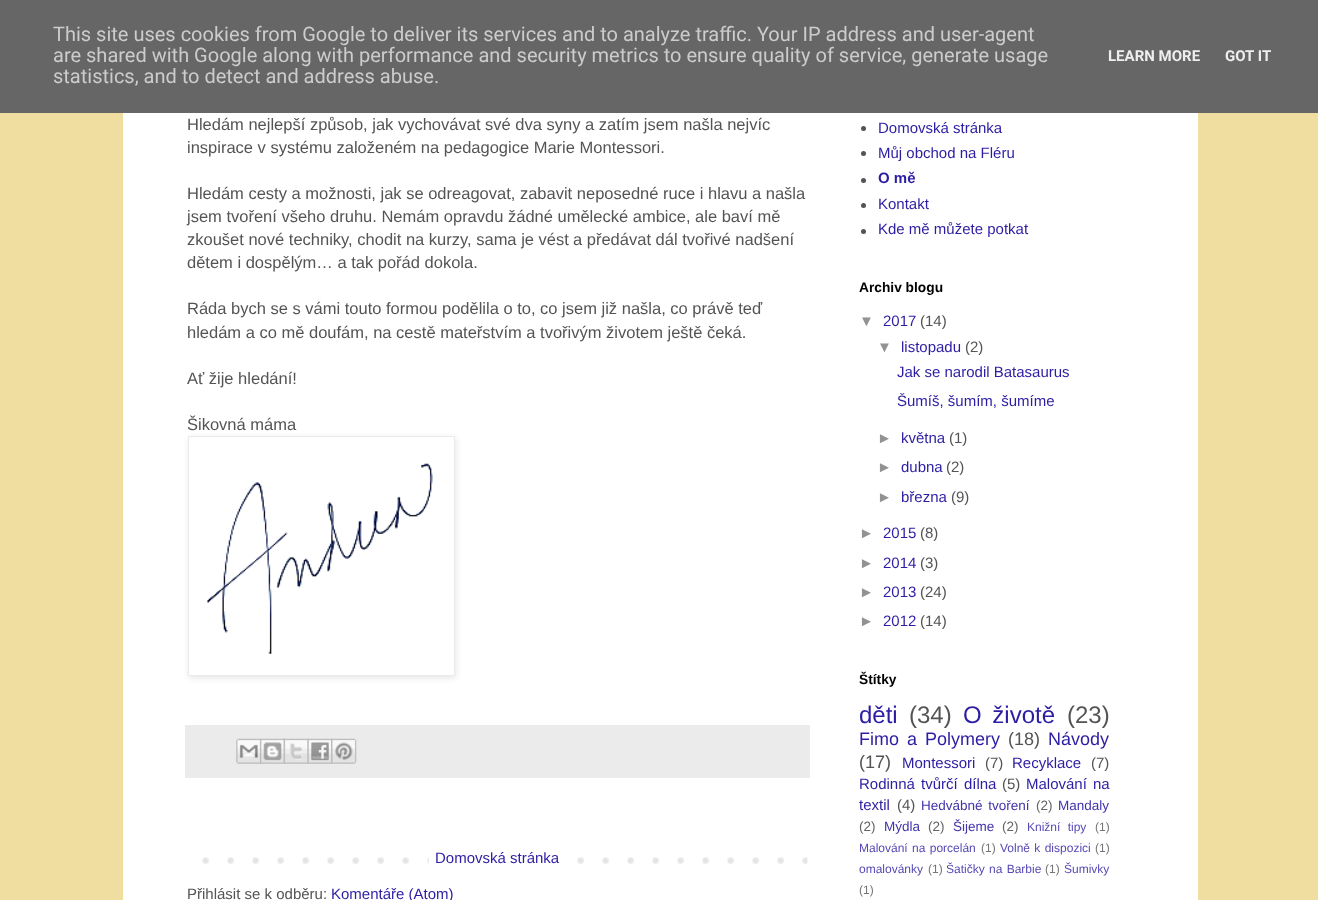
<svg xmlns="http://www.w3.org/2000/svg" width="1318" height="900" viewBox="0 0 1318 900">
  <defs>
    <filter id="blur1" x="-50%" y="-200%" width="200%" height="500%"><feGaussianBlur stdDeviation="3"/></filter>
  </defs>
  <rect width="100%" height="100%" fill="#f0dea0"/>
  <rect x="0" y="0" width="1318" height="113" fill="#666666"/>
  <text x="53" y="41" font-family="Roboto" font-size="20" fill="#cccccc">This site uses cookies from Google to deliver its services and to analyze traffic. Your IP address and user-agent</text>
  <text x="53" y="62" font-family="Roboto" font-size="20" fill="#cccccc">are shared with Google along with performance and security metrics to ensure quality of service, generate usage</text>
  <text x="53" y="83" font-family="Roboto" font-size="20" fill="#cccccc">statistics, and to detect and address abuse.</text>
  <text x="1108" y="61" font-family="Roboto" font-size="15" font-weight="bold" fill="#eeeeee">LEARN MORE</text>
  <text x="1225" y="61" font-family="Roboto" font-size="15" font-weight="bold" fill="#eeeeee">GOT IT</text>
  <rect x="123" y="113" width="1075" height="787" fill="#ffffff"/>
  <text x="187" y="130" font-family="Liberation Sans" font-size="16.5" fill="#545454">Hledám nejlepší způsob, jak vychovávat své dva syny a zatím jsem našla nejvíc</text>
  <text x="187" y="153" font-family="Liberation Sans" font-size="16.5" fill="#545454">inspirace v systému založeném na pedagogice Marie Montessori.</text>
  <text x="187" y="199" font-family="Liberation Sans" font-size="16.5" fill="#545454">Hledám cesty a možnosti, jak se odreagovat, zabavit neposedné ruce i hlavu a našla</text>
  <text x="187" y="222" font-family="Liberation Sans" font-size="16.5" fill="#545454">jsem tvoření všeho druhu. Nemám opravdu žádné umělecké ambice, ale baví mě</text>
  <text x="187" y="245" font-family="Liberation Sans" font-size="16.5" fill="#545454">zkoušet nové techniky, chodit na kurzy, sama je vést</text>
  <text x="573" y="245" font-family="Liberation Sans" font-size="16.5" fill="#545454">a předávat dál tvořivé nadšení</text>
  <text x="187" y="268" font-family="Liberation Sans" font-size="16.5" fill="#545454">dětem i dospělým… a tak pořád dokola.</text>
  <text x="187" y="314" font-family="Liberation Sans" font-size="16.5" fill="#545454">Ráda bych se s vámi touto formou podělila o to, co jsem již našla, co právě teď</text>
  <text x="187" y="338" font-family="Liberation Sans" font-size="16.5" fill="#545454">hledám a co mě doufám, na cestě mateřstvím a tvořivým životem ještě čeká.</text>
  <text x="187" y="384" font-family="Liberation Sans" font-size="16.5" fill="#545454">Ať žije hledání!</text>
  <text x="187" y="430" font-family="Liberation Sans" font-size="16.5" fill="#545454">Šikovná máma</text>
  <rect x="189" y="438" width="267" height="240" fill="#000000" fill-opacity="0.1" filter="url(#blur1)"/>
  <rect x="188.5" y="436.5" width="266" height="239" fill="#ffffff" stroke="#ebebeb"/>
  <image x="207" y="463" width="226" height="191" href="img1.png"/>
  <rect x="185" y="725" width="625" height="53" fill="#ebebeb"/>
  <image x="236" y="738" width="26" height="26" href="img2.png"/>
  <image x="260" y="738" width="25" height="26" href="img3.png"/>
  <image x="283" y="738" width="26" height="26" href="img4.png"/>
  <image x="307" y="738" width="26" height="26" href="img5.png"/>
  <image x="331" y="738" width="26" height="26" href="img6.png"/>
  <image x="202" y="857" width="606" height="7" href="img7.png"/>
  <rect x="429" y="857" width="131" height="7" fill="#ffffff"/>
  <text x="435" y="863" font-family="Liberation Sans" font-size="15" fill="#2c1da3">Domovská stránka</text>
  <text x="187" y="899" font-family="Liberation Sans" font-size="15" fill="#545454">Přihlásit se k odběru:</text>
  <text x="331" y="899" font-family="Liberation Sans" font-size="15" fill="#2c1da3">Komentáře (Atom)</text>
  <circle cx="863.5" cy="128.5" r="2.5" fill="#545454"/>
  <text x="878" y="133" font-family="Liberation Sans" font-size="15" fill="#2c1da3">Domovská stránka</text>
  <circle cx="863.5" cy="153.5" r="2.5" fill="#545454"/>
  <text x="878" y="158" font-family="Liberation Sans" font-size="15" fill="#2c1da3">Můj obchod na Fléru</text>
  <circle cx="863.5" cy="180.5" r="2.5" fill="#545454"/>
  <text x="878" y="183" font-family="Liberation Sans" font-size="15" font-weight="bold" fill="#2c1da3">O mě</text>
  <circle cx="863.5" cy="205.5" r="2.5" fill="#545454"/>
  <text x="878" y="209" font-family="Liberation Sans" font-size="15" fill="#2c1da3">Kontakt</text>
  <circle cx="863.5" cy="231.5" r="2.5" fill="#545454"/>
  <text x="878" y="234" font-family="Liberation Sans" font-size="15" fill="#2c1da3">Kde mě můžete potkat</text>
  <text x="859" y="292" font-family="Liberation Sans" font-size="13.75" font-weight="bold" fill="#000000">Archiv blogu</text>
  <text x="859" y="326" font-family="Liberation Sans" font-size="15" fill="#929292">▼</text>
  <text x="883" y="326" font-family="Liberation Sans" font-size="15" fill="#2c1da3">2017</text>
  <text x="920" y="326" font-family="Liberation Sans" font-size="15" fill="#545454">(14)</text>
  <text x="877" y="352" font-family="Liberation Sans" font-size="15" fill="#929292">▼</text>
  <text x="901" y="352" font-family="Liberation Sans" font-size="15" fill="#2c1da3">listopadu</text>
  <text x="965" y="352" font-family="Liberation Sans" font-size="15" fill="#545454">(2)</text>
  <text x="897" y="377" font-family="Liberation Sans" font-size="15" fill="#2c1da3">Jak se narodil Batasaurus</text>
  <text x="897" y="406" font-family="Liberation Sans" font-size="15" fill="#2c1da3">Šumíš, šumím, šumíme</text>
  <text x="877" y="443" font-family="Liberation Sans" font-size="15" fill="#929292">►</text>
  <text x="901" y="443" font-family="Liberation Sans" font-size="15" fill="#2c1da3">května</text>
  <text x="949" y="443" font-family="Liberation Sans" font-size="15" fill="#545454">(1)</text>
  <text x="877" y="472" font-family="Liberation Sans" font-size="15" fill="#929292">►</text>
  <text x="901" y="472" font-family="Liberation Sans" font-size="15" fill="#2c1da3">dubna</text>
  <text x="946" y="472" font-family="Liberation Sans" font-size="15" fill="#545454">(2)</text>
  <text x="877" y="502" font-family="Liberation Sans" font-size="15" fill="#929292">►</text>
  <text x="901" y="502" font-family="Liberation Sans" font-size="15" fill="#2c1da3">března</text>
  <text x="951" y="502" font-family="Liberation Sans" font-size="15" fill="#545454">(9)</text>
  <text x="859" y="538" font-family="Liberation Sans" font-size="15" fill="#929292">►</text>
  <text x="883" y="538" font-family="Liberation Sans" font-size="15" fill="#2c1da3">2015</text>
  <text x="920" y="538" font-family="Liberation Sans" font-size="15" fill="#545454">(8)</text>
  <text x="859" y="568" font-family="Liberation Sans" font-size="15" fill="#929292">►</text>
  <text x="883" y="568" font-family="Liberation Sans" font-size="15" fill="#2c1da3">2014</text>
  <text x="920" y="568" font-family="Liberation Sans" font-size="15" fill="#545454">(3)</text>
  <text x="859" y="597" font-family="Liberation Sans" font-size="15" fill="#929292">►</text>
  <text x="883" y="597" font-family="Liberation Sans" font-size="15" fill="#2c1da3">2013</text>
  <text x="920" y="597" font-family="Liberation Sans" font-size="15" fill="#545454">(24)</text>
  <text x="859" y="626" font-family="Liberation Sans" font-size="15" fill="#929292">►</text>
  <text x="883" y="626" font-family="Liberation Sans" font-size="15" fill="#2c1da3">2012</text>
  <text x="920" y="626" font-family="Liberation Sans" font-size="15" fill="#545454">(14)</text>
  <text x="859" y="684" font-family="Liberation Sans" font-size="13.75" font-weight="bold" fill="#000000">Štítky</text>
  <text x="859" y="723" font-family="Liberation Sans" font-size="24" fill="#2c1da3">děti</text>
  <text x="909" y="723" font-family="Liberation Sans" font-size="24" fill="#545454">(34)</text>
  <text x="963" y="723" word-spacing="4" font-family="Liberation Sans" font-size="24" fill="#2c1da3">O životě</text>
  <text x="1067" y="723" font-family="Liberation Sans" font-size="24" fill="#545454">(23)</text>
  <text x="859" y="745" word-spacing="3" font-family="Liberation Sans" font-size="18" fill="#2c1da3">Fimo a Polymery</text>
  <text x="1008" y="745" font-family="Liberation Sans" font-size="18" fill="#545454">(18)</text>
  <text x="1048" y="745" font-family="Liberation Sans" font-size="18" fill="#2c1da3">Návody</text>
  <text x="859" y="768" font-family="Liberation Sans" font-size="18" fill="#545454">(17)</text>
  <text x="902" y="768" font-family="Liberation Sans" font-size="15" fill="#2c1da3">Montessori</text>
  <text x="985" y="768" font-family="Liberation Sans" font-size="15" fill="#545454">(7)</text>
  <text x="1012" y="768" font-family="Liberation Sans" font-size="15" fill="#2c1da3">Recyklace</text>
  <text x="1091" y="768" font-family="Liberation Sans" font-size="15" fill="#545454">(7)</text>
  <text x="859" y="789" word-spacing="2" font-family="Liberation Sans" font-size="15" fill="#2c1da3">Rodinná tvůrčí dílna</text>
  <text x="1002" y="789" font-family="Liberation Sans" font-size="15" fill="#545454">(5)</text>
  <text x="1026" y="789" word-spacing="2" font-family="Liberation Sans" font-size="15" fill="#2c1da3">Malování na</text>
  <text x="859" y="810" font-family="Liberation Sans" font-size="15" fill="#2c1da3">textil</text>
  <text x="897" y="810" font-family="Liberation Sans" font-size="15" fill="#545454">(4)</text>
  <text x="921" y="810" word-spacing="2" font-family="Liberation Sans" font-size="13.5" fill="#4134ac">Hedvábné tvoření</text>
  <text x="1036" y="810" font-family="Liberation Sans" font-size="13.5" fill="#656565">(2)</text>
  <text x="1058" y="810" font-family="Liberation Sans" font-size="13.5" fill="#4134ac">Mandaly</text>
  <text x="859" y="831" font-family="Liberation Sans" font-size="13.5" fill="#656565">(2)</text>
  <text x="884" y="831" font-family="Liberation Sans" font-size="13.5" fill="#4134ac">Mýdla</text>
  <text x="928" y="831" font-family="Liberation Sans" font-size="13.5" fill="#656565">(2)</text>
  <text x="953" y="831" font-family="Liberation Sans" font-size="13.5" fill="#4134ac">Šijeme</text>
  <text x="1002" y="831" font-family="Liberation Sans" font-size="13.5" fill="#656565">(2)</text>
  <text x="1027" y="831" word-spacing="4" font-family="Liberation Sans" font-size="12" fill="#564ab5">Knižní tipy</text>
  <text x="1095" y="831" font-family="Liberation Sans" font-size="12" fill="#767676">(1)</text>
  <text x="859" y="852" word-spacing="1" font-family="Liberation Sans" font-size="12" fill="#564ab5">Malování na porcelán</text>
  <text x="981" y="852" font-family="Liberation Sans" font-size="12" fill="#767676">(1)</text>
  <text x="1000" y="852" word-spacing="1" font-family="Liberation Sans" font-size="12" fill="#564ab5">Volně k dispozici</text>
  <text x="1095" y="852" font-family="Liberation Sans" font-size="12" fill="#767676">(1)</text>
  <text x="859" y="873" font-family="Liberation Sans" font-size="12" fill="#564ab5">omalovánky</text>
  <text x="928" y="873" font-family="Liberation Sans" font-size="12" fill="#767676">(1)</text>
  <text x="946" y="873" word-spacing="1" font-family="Liberation Sans" font-size="12" fill="#564ab5">Šatičky na Barbie</text>
  <text x="1045" y="873" font-family="Liberation Sans" font-size="12" fill="#767676">(1)</text>
  <text x="1064" y="873" font-family="Liberation Sans" font-size="12" fill="#564ab5">Šumivky</text>
  <text x="859" y="894" font-family="Liberation Sans" font-size="12" fill="#767676">(1)</text>
</svg>
